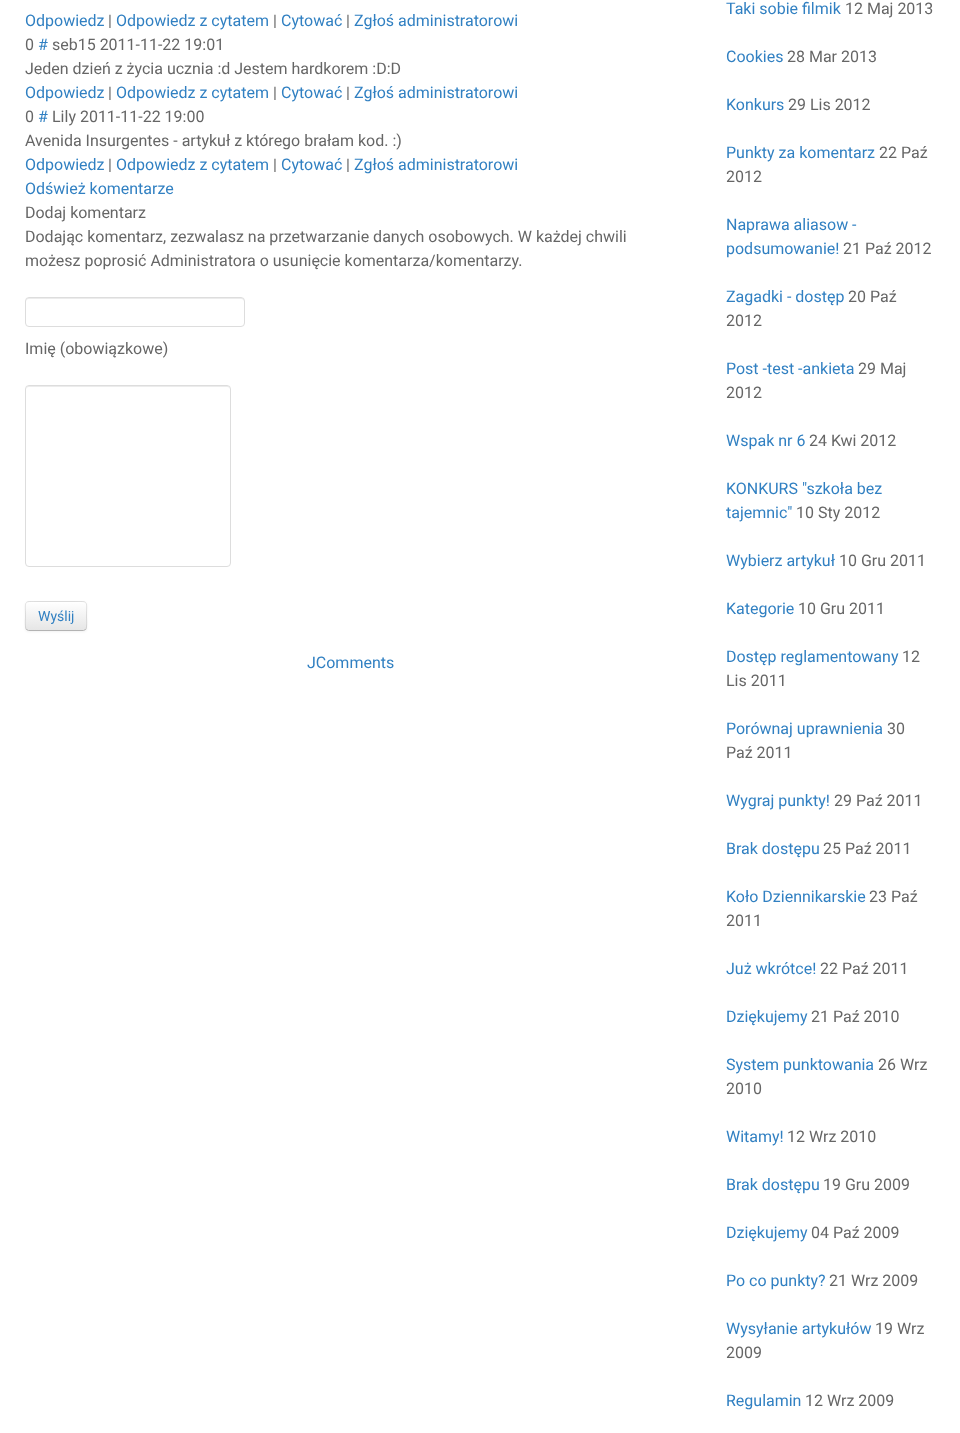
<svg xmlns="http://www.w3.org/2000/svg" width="960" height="1433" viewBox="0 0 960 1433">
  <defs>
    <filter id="blur1" x="-50%" y="-200%" width="200%" height="500%"><feGaussianBlur stdDeviation="1"/></filter>
    <clipPath id="clip1"><rect x="25" y="601" width="62" height="30" rx="4"/></clipPath>
    <linearGradient id="g1" gradientUnits="userSpaceOnUse" x1="56" y1="602" x2="56" y2="630"><stop offset="0" stop-color="#ffffff"/><stop offset="1" stop-color="#e6e6e6"/></linearGradient>
  </defs>
  <rect width="100%" height="100%" fill="#ffffff"/>
  <text x="25" y="26" font-family="Roboto" font-size="16" fill="#3180c2">Odpowiedz</text>
  <text x="108" y="26" font-family="Roboto" font-size="16" fill="#666666">|</text>
  <text x="116" y="26" font-family="Roboto" font-size="16" fill="#3180c2">Odpowiedz z cytatem</text>
  <text x="273" y="26" font-family="Roboto" font-size="16" fill="#666666">|</text>
  <text x="281" y="26" font-family="Roboto" font-size="16" fill="#3180c2">Cytować</text>
  <text x="346" y="26" font-family="Roboto" font-size="16" fill="#666666">|</text>
  <text x="354" y="26" font-family="Roboto" font-size="16" fill="#3180c2">Zgłoś administratorowi</text>
  <text x="25" y="50" font-family="Roboto" font-size="16" fill="#666666">0</text>
  <text x="38" y="50" font-family="Roboto" font-size="16" fill="#3180c2">#</text>
  <text x="52" y="50" font-family="Roboto" font-size="16" fill="#666666">seb15 2011-11-22 19:01</text>
  <text x="25" y="74" font-family="Roboto" font-size="16" fill="#666666">Jeden dzień z życia ucznia :d Jestem hardkorem :D:D</text>
  <text x="25" y="98" font-family="Roboto" font-size="16" fill="#3180c2">Odpowiedz</text>
  <text x="108" y="98" font-family="Roboto" font-size="16" fill="#666666">|</text>
  <text x="116" y="98" font-family="Roboto" font-size="16" fill="#3180c2">Odpowiedz z cytatem</text>
  <text x="273" y="98" font-family="Roboto" font-size="16" fill="#666666">|</text>
  <text x="281" y="98" font-family="Roboto" font-size="16" fill="#3180c2">Cytować</text>
  <text x="346" y="98" font-family="Roboto" font-size="16" fill="#666666">|</text>
  <text x="354" y="98" font-family="Roboto" font-size="16" fill="#3180c2">Zgłoś administratorowi</text>
  <text x="25" y="122" font-family="Roboto" font-size="16" fill="#666666">0</text>
  <text x="38" y="122" font-family="Roboto" font-size="16" fill="#3180c2">#</text>
  <text x="52" y="122" font-family="Roboto" font-size="16" fill="#666666">Lily 2011-11-22 19:00</text>
  <text x="25" y="146" font-family="Roboto" font-size="16" fill="#666666">Avenida Insurgentes - artykuł z którego brałam kod. :)</text>
  <text x="25" y="170" font-family="Roboto" font-size="16" fill="#3180c2">Odpowiedz</text>
  <text x="108" y="170" font-family="Roboto" font-size="16" fill="#666666">|</text>
  <text x="116" y="170" font-family="Roboto" font-size="16" fill="#3180c2">Odpowiedz z cytatem</text>
  <text x="273" y="170" font-family="Roboto" font-size="16" fill="#666666">|</text>
  <text x="281" y="170" font-family="Roboto" font-size="16" fill="#3180c2">Cytować</text>
  <text x="346" y="170" font-family="Roboto" font-size="16" fill="#666666">|</text>
  <text x="354" y="170" font-family="Roboto" font-size="16" fill="#3180c2">Zgłoś administratorowi</text>
  <text x="25" y="194" font-family="Roboto" font-size="16" fill="#3180c2">Odśwież komentarze</text>
  <text x="25" y="218" font-family="Roboto" font-size="16" fill="#666666">Dodaj komentarz</text>
  <text x="25" y="242" font-family="Roboto" font-size="16" fill="#666666">Dodając komentarz, zezwalasz na przetwarzanie danych osobowych. W każdej chwili</text>
  <text x="25" y="266" font-family="Roboto" font-size="16" fill="#666666">możesz poprosić Administratora o usunięcie komentarza/komentarzy.</text>
  <path d="M29 299H241C243 299 244 300 244 302V301C244 299 243 298 241 298H29C27 298 26 299 26 301V302C26 300 27 299 29 299Z" fill="#ececec"/>
  <rect x="25.5" y="297.5" width="219" height="29" rx="3.5" fill="none" stroke="#dddddd"/>
  <text x="25" y="354" font-family="Roboto" font-size="16" fill="#666666">Imię (obowiązkowe)</text>
  <path d="M29 387H227C229 387 230 388 230 390C230 388 229 386 227 386H29C27 386 26 388 26 390C26 388 27 387 29 387Z" fill="#ececec"/>
  <rect x="25.5" y="385.5" width="205" height="181" rx="3.5" fill="none" stroke="#dddddd"/>
  <rect x="25" y="602" width="62" height="30" rx="4" fill="#000000" fill-opacity="0.05" filter="url(#blur1)"/>
  <rect x="25" y="601" width="62" height="30" rx="4" fill="#f5f5f5"/>
  <g clip-path="url(#clip1)">
    <rect x="25" y="602" width="62" height="28" fill="url(#g1)"/>
  </g>
  <path d="M29 603H83C85 603 86 604 86 606C86 600 78 602 74 602H38C34 602 26 600 26 606C26 604 27 603 29 603Z" fill="#ffffff"/>
  <path d="M85.5 629.5L83.5 630.5H28.5L26.5 629.5" fill="none" stroke="#b3b3b3"/>
  <path d="M26.5 629.5C24.5 627.5 25.5 619 25.5 616C25.5 600.5 23 601.5 38 601.5H74C89 601.5 86.5 600.5 86.5 616C86.5 619 87.5 627.5 85.5 629.5" fill="none" stroke="#000000" stroke-opacity="0.1"/>
  <text x="38" y="621" font-family="Roboto" font-size="14" fill="#3180c2">Wyślij</text>
  <text x="307" y="668" font-family="Roboto" font-size="16" fill="#3180c2">JComments</text>
  <text x="726" y="14" font-family="Roboto" font-size="16" fill="#3180c2">Taki sobie filmik</text>
  <text x="845" y="14" font-family="Roboto" font-size="16" fill="#666666">12 Maj 2013</text>
  <text x="726" y="62" font-family="Roboto" font-size="16" fill="#3180c2">Cookies</text>
  <text x="787" y="62" font-family="Roboto" font-size="16" fill="#666666">28 Mar 2013</text>
  <text x="726" y="110" font-family="Roboto" font-size="16" fill="#3180c2">Konkurs</text>
  <text x="788" y="110" font-family="Roboto" font-size="16" fill="#666666">29 Lis 2012</text>
  <text x="726" y="158" font-family="Roboto" font-size="16" fill="#3180c2">Punkty za komentarz</text>
  <text x="879" y="158" font-family="Roboto" font-size="16" fill="#666666">22 Paź</text>
  <text x="726" y="182" font-family="Roboto" font-size="16" fill="#666666">2012</text>
  <text x="726" y="230" font-family="Roboto" font-size="16" fill="#3180c2">Naprawa aliasow -</text>
  <text x="726" y="254" font-family="Roboto" font-size="16" fill="#3180c2">podsumowanie!</text>
  <text x="843" y="254" font-family="Roboto" font-size="16" fill="#666666">21 Paź 2012</text>
  <text x="726" y="302" font-family="Roboto" font-size="16" fill="#3180c2">Zagadki - dostęp</text>
  <text x="848" y="302" font-family="Roboto" font-size="16" fill="#666666">20 Paź</text>
  <text x="726" y="326" font-family="Roboto" font-size="16" fill="#666666">2012</text>
  <text x="726" y="374" font-family="Roboto" font-size="16" fill="#3180c2">Post -test -ankieta</text>
  <text x="858" y="374" font-family="Roboto" font-size="16" fill="#666666">29 Maj</text>
  <text x="726" y="398" font-family="Roboto" font-size="16" fill="#666666">2012</text>
  <text x="726" y="446" font-family="Roboto" font-size="16" fill="#3180c2">Wspak nr 6</text>
  <text x="809" y="446" font-family="Roboto" font-size="16" fill="#666666">24 Kwi 2012</text>
  <text x="726" y="494" font-family="Roboto" font-size="16" fill="#3180c2">KONKURS "szkoła bez</text>
  <text x="726" y="518" font-family="Roboto" font-size="16" fill="#3180c2">tajemnic"</text>
  <text x="796" y="518" font-family="Roboto" font-size="16" fill="#666666">10 Sty 2012</text>
  <text x="726" y="566" font-family="Roboto" font-size="16" fill="#3180c2">Wybierz artykuł</text>
  <text x="839" y="566" font-family="Roboto" font-size="16" fill="#666666">10 Gru 2011</text>
  <text x="726" y="614" font-family="Roboto" font-size="16" fill="#3180c2">Kategorie</text>
  <text x="798" y="614" font-family="Roboto" font-size="16" fill="#666666">10 Gru 2011</text>
  <text x="726" y="662" font-family="Roboto" font-size="16" fill="#3180c2">Dostęp reglamentowany</text>
  <text x="902" y="662" font-family="Roboto" font-size="16" fill="#666666">12</text>
  <text x="726" y="686" font-family="Roboto" font-size="16" fill="#666666">Lis 2011</text>
  <text x="726" y="734" font-family="Roboto" font-size="16" fill="#3180c2">Porównaj uprawnienia</text>
  <text x="887" y="734" font-family="Roboto" font-size="16" fill="#666666">30</text>
  <text x="726" y="758" font-family="Roboto" font-size="16" fill="#666666">Paź 2011</text>
  <text x="726" y="806" font-family="Roboto" font-size="16" fill="#3180c2">Wygraj punkty!</text>
  <text x="834" y="806" font-family="Roboto" font-size="16" fill="#666666">29 Paź 2011</text>
  <text x="726" y="854" font-family="Roboto" font-size="16" fill="#3180c2">Brak dostępu</text>
  <text x="823" y="854" font-family="Roboto" font-size="16" fill="#666666">25 Paź 2011</text>
  <text x="726" y="902" font-family="Roboto" font-size="16" fill="#3180c2">Koło Dziennikarskie</text>
  <text x="869" y="902" font-family="Roboto" font-size="16" fill="#666666">23 Paź</text>
  <text x="726" y="926" font-family="Roboto" font-size="16" fill="#666666">2011</text>
  <text x="726" y="974" font-family="Roboto" font-size="16" fill="#3180c2">Już wkrótce!</text>
  <text x="820" y="974" font-family="Roboto" font-size="16" fill="#666666">22 Paź 2011</text>
  <text x="726" y="1022" font-family="Roboto" font-size="16" fill="#3180c2">Dziękujemy</text>
  <text x="811" y="1022" font-family="Roboto" font-size="16" fill="#666666">21 Paź 2010</text>
  <text x="726" y="1070" font-family="Roboto" font-size="16" fill="#3180c2">System punktowania</text>
  <text x="878" y="1070" font-family="Roboto" font-size="16" fill="#666666">26 Wrz</text>
  <text x="726" y="1094" font-family="Roboto" font-size="16" fill="#666666">2010</text>
  <text x="726" y="1142" font-family="Roboto" font-size="16" fill="#3180c2">Witamy!</text>
  <text x="787" y="1142" font-family="Roboto" font-size="16" fill="#666666">12 Wrz 2010</text>
  <text x="726" y="1190" font-family="Roboto" font-size="16" fill="#3180c2">Brak dostępu</text>
  <text x="823" y="1190" font-family="Roboto" font-size="16" fill="#666666">19 Gru 2009</text>
  <text x="726" y="1238" font-family="Roboto" font-size="16" fill="#3180c2">Dziękujemy</text>
  <text x="811" y="1238" font-family="Roboto" font-size="16" fill="#666666">04 Paź 2009</text>
  <text x="726" y="1286" font-family="Roboto" font-size="16" fill="#3180c2">Po co punkty?</text>
  <text x="829" y="1286" font-family="Roboto" font-size="16" fill="#666666">21 Wrz 2009</text>
  <text x="726" y="1334" font-family="Roboto" font-size="16" fill="#3180c2">Wysyłanie artykułów</text>
  <text x="875" y="1334" font-family="Roboto" font-size="16" fill="#666666">19 Wrz</text>
  <text x="726" y="1358" font-family="Roboto" font-size="16" fill="#666666">2009</text>
  <text x="726" y="1406" font-family="Roboto" font-size="16" fill="#3180c2">Regulamin</text>
  <text x="805" y="1406" font-family="Roboto" font-size="16" fill="#666666">12 Wrz 2009</text>
</svg>
